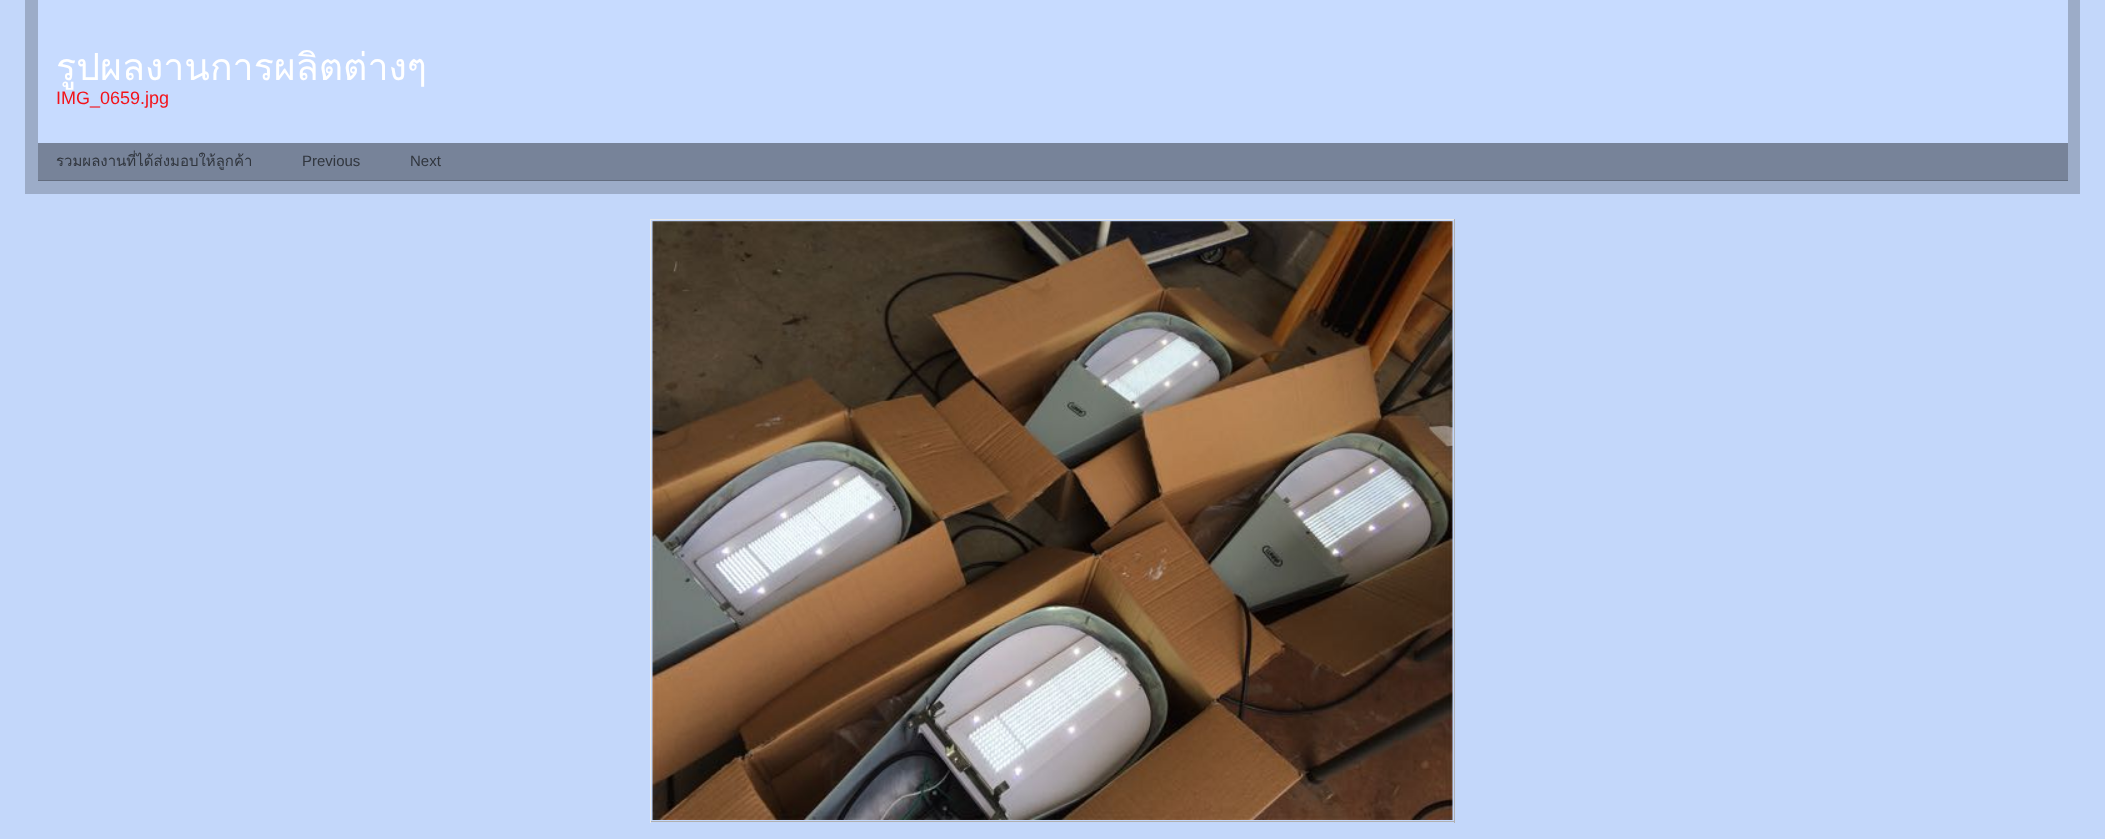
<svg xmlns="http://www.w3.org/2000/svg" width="2105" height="839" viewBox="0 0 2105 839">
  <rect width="100%" height="100%" fill="#c3d7fa"/>
  <rect x="38" y="0" width="2030" height="143" fill="#c7dbff"/>
  <rect x="2068" y="0" width="12" height="181" fill="#9cacc8"/>
  <rect x="38" y="181" width="2042" height="13" fill="#9cacc8"/>
  <rect x="25" y="0" width="13" height="194" fill="#9cacc8"/>
  <text x="56" y="80" font-family="Loma" font-size="37.5" fill="#ffffff">รูปผลงานการผลิตต่างๆ</text>
  <text x="56" y="104" font-family="Liberation Sans" font-size="18" fill="#f3131a">IMG_0659.jpg</text>
  <rect x="38" y="143" width="2030" height="37" fill="#778399"/>
  <rect x="38" y="180" width="2030" height="1" fill="#636d7f"/>
  <text x="56" y="166" font-family="Loma" font-size="15" fill="#31363e">รวมผลงานที่ได้ส่งมอบให้ลูกค้า</text>
  <text x="302" y="166" font-family="Liberation Sans" font-size="15" fill="#31363e">Previous</text>
  <text x="410" y="166" font-family="Liberation Sans" font-size="15" fill="#31363e">Next</text>
  <rect x="650" y="219" width="805" height="1" fill="#eaeaea"/>
  <rect x="1454" y="219" width="1" height="604" fill="#b0b0b0"/>
  <rect x="650" y="821" width="805" height="1" fill="#b0b0b0"/>
  <rect x="650" y="219" width="1" height="604" fill="#eaeaea"/>
  <image x="652" y="221" width="801" height="599" href="img1.png"/>
</svg>
